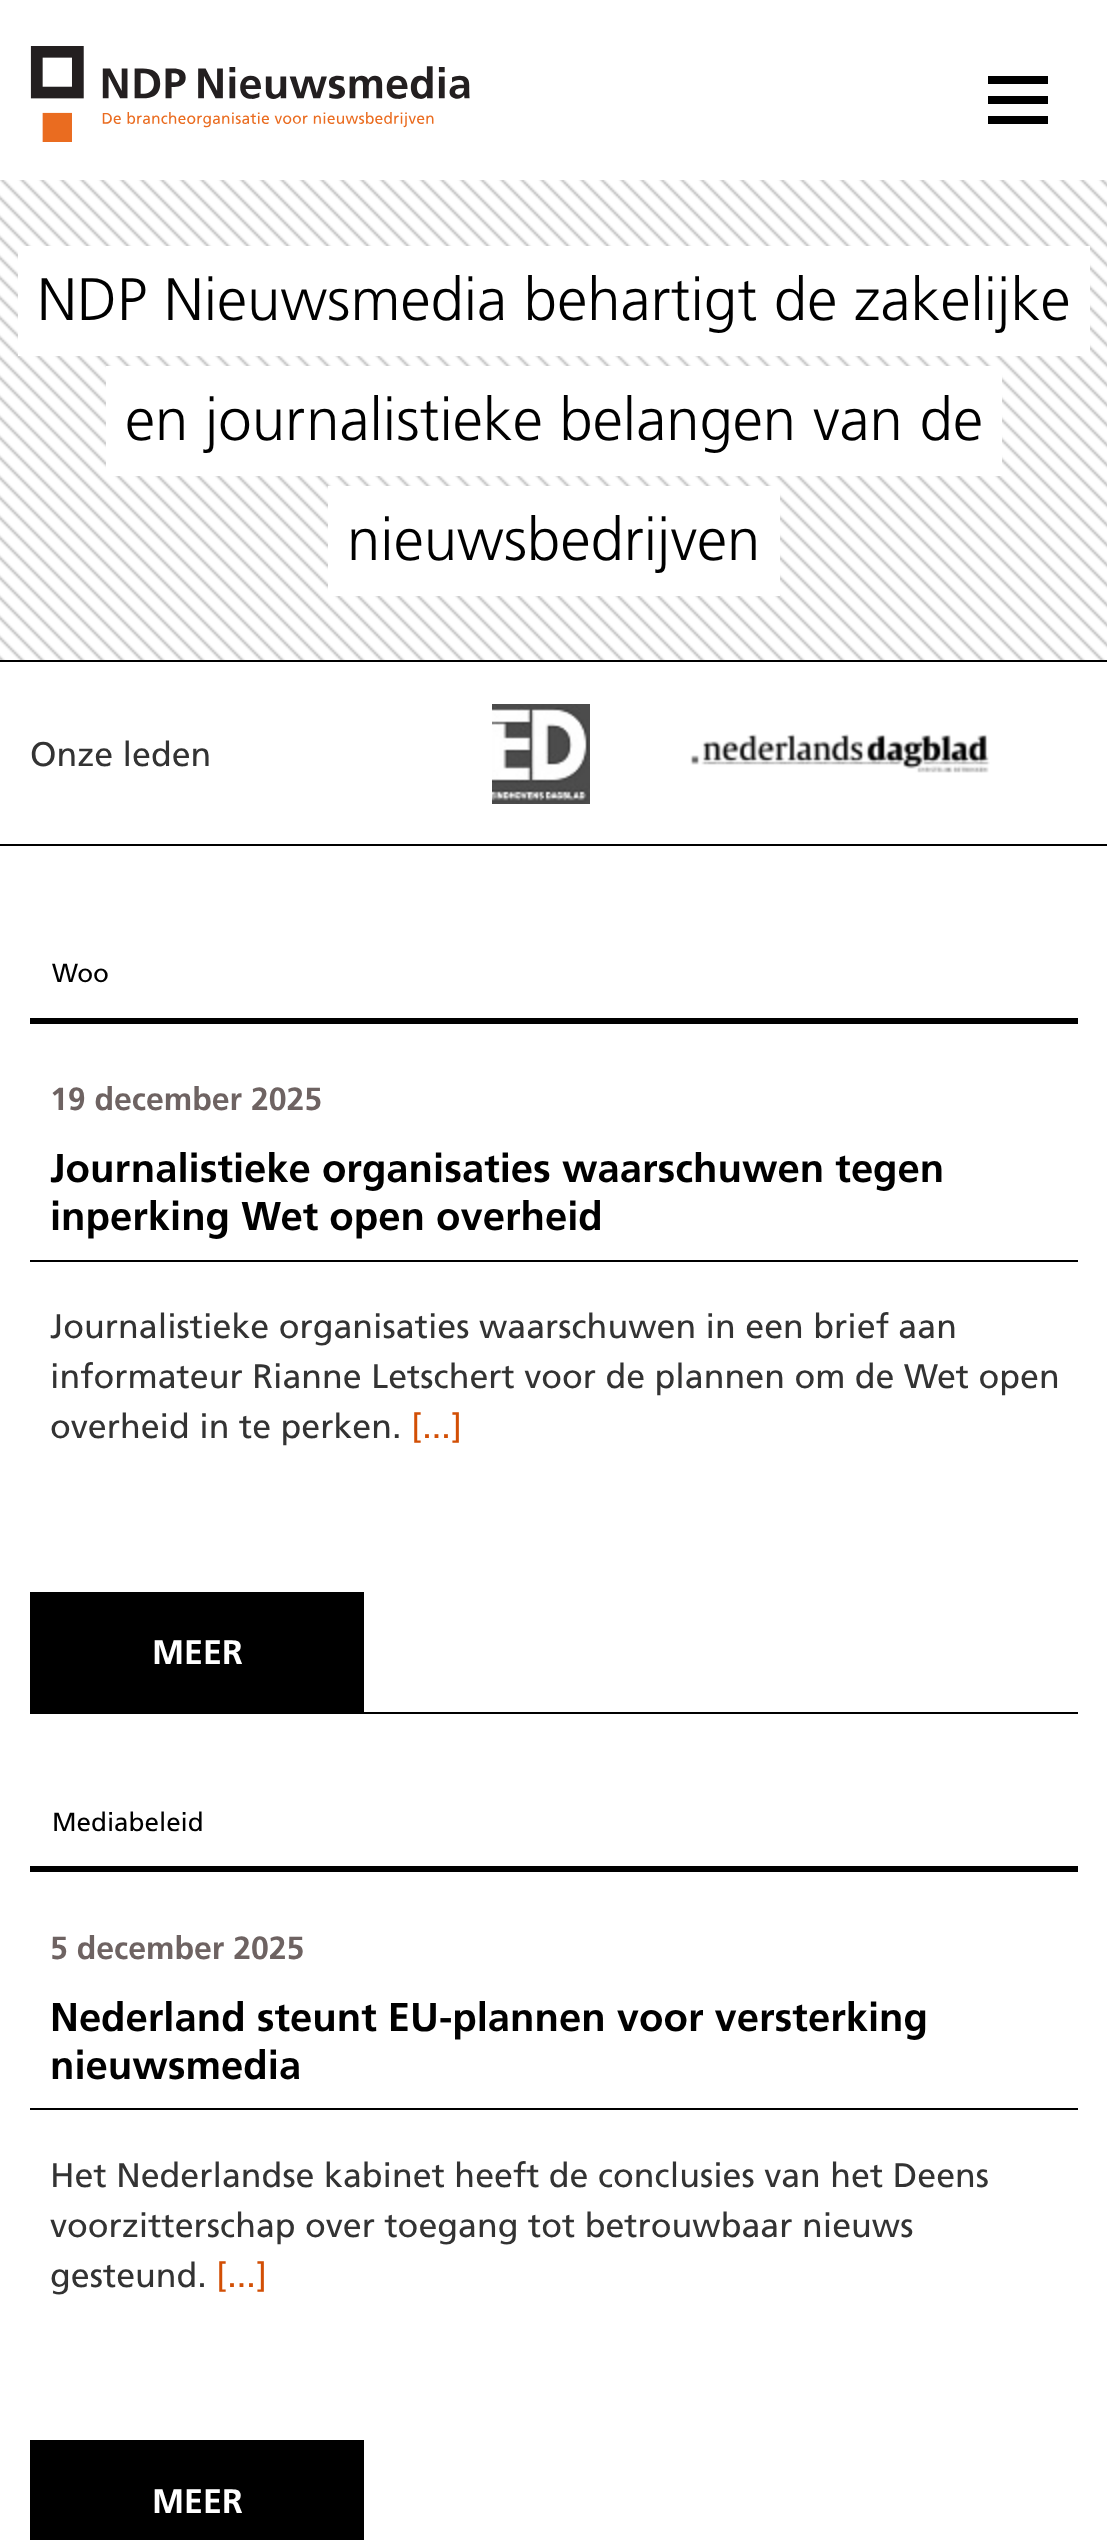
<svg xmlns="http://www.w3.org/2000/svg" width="1107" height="2540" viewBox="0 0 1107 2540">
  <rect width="100%" height="100%" fill="#ffffff"/>
  <image x="30" y="46" width="440" height="96" href="img1.png"/>
  <rect x="988" y="76" width="60" height="8" fill="#000000"/>
  <rect x="988" y="96" width="60" height="8" fill="#000000"/>
  <rect x="988" y="116" width="60" height="8" fill="#000000"/>
  <image x="0" y="180" width="1107" height="480" href="img2.png"/>
  <rect x="28" y="256" width="1052" height="90" fill="none" stroke="#ffffff" stroke-width="20"/>
  <rect x="38" y="266" width="1032" height="70" fill="#ffffff"/>
  <text x="37" y="320" font-family="Frutiger" font-size="60" font-weight="300" fill="#000000">NDP Nieuwsmedia behartigt de zakelijke</text>
  <rect x="116" y="376" width="876" height="90" fill="none" stroke="#ffffff" stroke-width="20"/>
  <rect x="126" y="386" width="856" height="70" fill="#ffffff"/>
  <text x="125" y="440" font-family="Frutiger" font-size="60" font-weight="300" fill="#000000">en journalistieke belangen van de</text>
  <rect x="338" y="496" width="432" height="90" fill="none" stroke="#ffffff" stroke-width="20"/>
  <rect x="348" y="506" width="412" height="70" fill="#ffffff"/>
  <text x="347" y="560" font-family="Frutiger" font-size="60" font-weight="300" fill="#000000">nieuwsbedrijven</text>
  <rect x="0" y="660" width="1107" height="2" fill="#000000"/>
  <rect x="0" y="844" width="1107" height="2" fill="#000000"/>
  <text x="30" y="766" font-family="Frutiger" font-size="34" fill="#333333">Onze leden</text>
  <image x="492" y="704" width="98" height="100" href="img3.png"/>
  <image x="690" y="734" width="300" height="39" href="img4.png"/>
  <rect x="30" y="1712" width="1048" height="2" fill="#000000"/>
  <text x="52" y="982" font-family="Frutiger" font-size="26" fill="#000000">Woo</text>
  <rect x="30" y="1018" width="1048" height="6" fill="#000000"/>
  <text x="50" y="1110" font-family="Frutiger" font-size="32" font-weight="bold" fill="#6e6362">19 december 2025</text>
  <text x="50" y="1182" font-family="Frutiger" font-size="40" font-weight="bold" fill="#000000">Journalistieke organisaties waarschuwen tegen</text>
  <text x="50" y="1230" font-family="Frutiger" font-size="40" font-weight="bold" fill="#000000">inperking Wet open overheid</text>
  <rect x="30" y="1260" width="1048" height="2" fill="#000000"/>
  <text x="50" y="1338" font-family="Frutiger" font-size="34" fill="#333333">Journalistieke organisaties waarschuwen in een brief aan</text>
  <text x="50" y="1388" font-family="Frutiger" font-size="34" fill="#333333">informateur Rianne Letschert voor de plannen om de Wet open</text>
  <text x="50" y="1438" font-family="Frutiger" font-size="34" fill="#333333">overheid in te perken.</text>
  <text x="411" y="1438" font-family="Frutiger" font-size="34" fill="#d24f05">[...]</text>
  <rect x="30" y="1592" width="334" height="120" fill="#000000"/>
  <text x="152" y="1664" font-family="Frutiger" font-size="34" font-weight="bold" fill="#ffffff">MEER</text>
  <text x="52" y="1831" font-family="Frutiger" font-size="26" fill="#000000">Mediabeleid</text>
  <rect x="30" y="1866" width="1048" height="6" fill="#000000"/>
  <text x="50" y="1959" font-family="Frutiger" font-size="32" font-weight="bold" fill="#6e6362">5 december 2025</text>
  <text x="50" y="2031" font-family="Frutiger" font-size="40" font-weight="bold" fill="#000000">Nederland steunt EU-plannen voor versterking</text>
  <text x="50" y="2079" font-family="Frutiger" font-size="40" font-weight="bold" fill="#000000">nieuwsmedia</text>
  <rect x="30" y="2108" width="1048" height="2" fill="#000000"/>
  <text x="50" y="2187" font-family="Frutiger" font-size="34" fill="#333333">Het Nederlandse kabinet heeft de conclusies van het Deens</text>
  <text x="50" y="2237" font-family="Frutiger" font-size="34" fill="#333333">voorzitterschap over toegang tot betrouwbaar nieuws</text>
  <text x="50" y="2287" font-family="Frutiger" font-size="34" fill="#333333">gesteund.</text>
  <text x="216" y="2287" font-family="Frutiger" font-size="34" fill="#d24f05">[...]</text>
  <rect x="30" y="2440" width="334" height="100" fill="#000000"/>
  <text x="152" y="2513" font-family="Frutiger" font-size="34" font-weight="bold" fill="#ffffff">MEER</text>
</svg>
